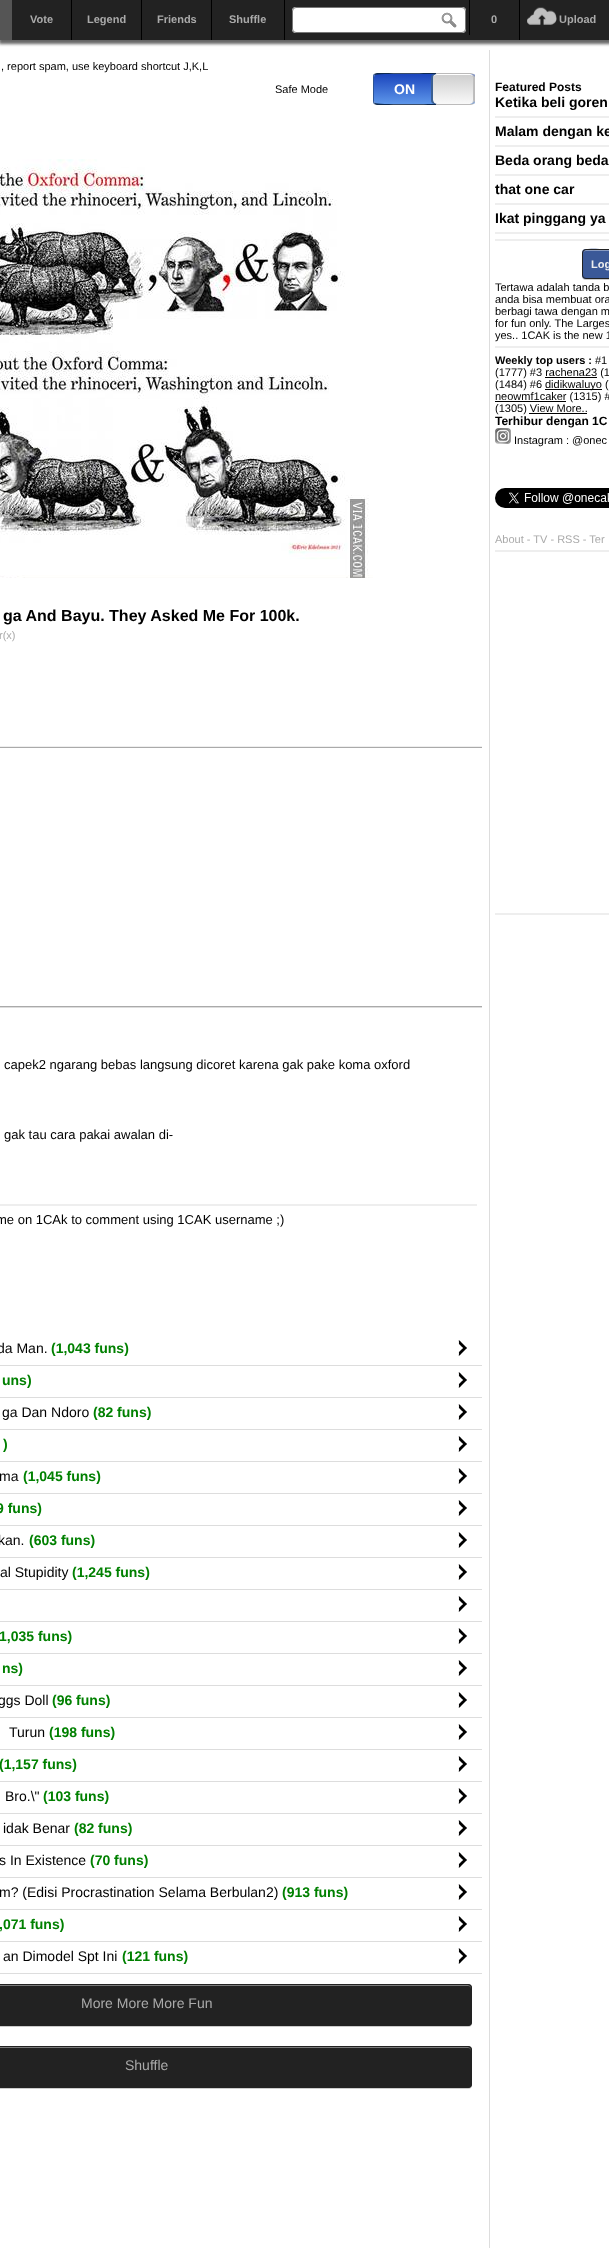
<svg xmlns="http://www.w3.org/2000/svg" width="609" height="2248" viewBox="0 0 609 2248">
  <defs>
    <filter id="blur1" x="-50%" y="-200%" width="200%" height="500%"><feGaussianBlur stdDeviation="1.5"/></filter>
    <clipPath id="clip1"><rect x="373" y="73" width="102" height="32" rx="4"/></clipPath>
    <linearGradient id="g1" gradientUnits="userSpaceOnUse" x1="424" y1="74" x2="424" y2="104"><stop offset="0" stop-color="#1b45bd"/><stop offset="1" stop-color="#5d96ea"/></linearGradient>
    <filter id="blur2" x="-50%" y="-200%" width="200%" height="500%"><feGaussianBlur stdDeviation="0.5"/></filter>
    <clipPath id="clip2"><rect x="433" y="74" width="41" height="30" rx="4"/></clipPath>
    <linearGradient id="g2" gradientUnits="userSpaceOnUse" x1="453" y1="75" x2="453" y2="104"><stop offset="0" stop-color="#cfcfcf"/><stop offset="1" stop-color="#f9f9f9"/></linearGradient>
  </defs>
  <rect width="100%" height="100%" fill="#ffffff"/>
  <rect x="-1" y="0" width="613" height="44" fill="#666666" filter="url(#blur1)"/>
  <rect x="12" y="0" width="597" height="40" fill="#222222"/>
  <rect x="0" y="0" width="12" height="40" fill="#555555"/>
  <rect x="71" y="0" width="1" height="40" fill="#000000"/>
  <text x="30" y="23" font-family="Liberation Sans" font-size="11" font-weight="bold" fill="#aaaaaa">Vote</text>
  <rect x="141" y="0" width="1" height="40" fill="#000000"/>
  <text x="87" y="23" font-family="Liberation Sans" font-size="11" font-weight="bold" fill="#aaaaaa">Legend</text>
  <rect x="211" y="0" width="1" height="40" fill="#000000"/>
  <text x="157" y="23" font-family="Liberation Sans" font-size="11" font-weight="bold" fill="#aaaaaa">Friends</text>
  <rect x="284" y="0" width="1" height="40" fill="#000000"/>
  <text x="229" y="23" font-family="Liberation Sans" font-size="11" font-weight="bold" fill="#aaaaaa">Shuffle</text>
  <rect x="469" y="0" width="1" height="35" fill="#000000"/>
  <rect x="292" y="7" width="174" height="26" rx="4" fill="#ffffff"/>
  <image x="441" y="12" width="16" height="16" href="img1.png"/>
  <rect x="292.5" y="7.5" width="173" height="25" rx="3.5" fill="none" stroke="#777777"/>
  <rect x="519" y="0" width="1" height="40" fill="#000000"/>
  <text x="491" y="23" font-family="Liberation Sans" font-size="11" font-weight="bold" fill="#aaaaaa">0</text>
  <image x="527" y="7" width="30" height="18" href="img2.png"/>
  <text x="559" y="23" font-family="Liberation Sans" font-size="11" font-weight="bold" fill="#aaaaaa">Upload</text>
  <rect x="489" y="50" width="1" height="2198" fill="#dddddd"/>
  <text x="1" y="70" font-family="Liberation Sans" font-size="11" fill="#000000">, report spam, use keyboard shortcut J,K,L</text>
  <text x="275" y="93" font-family="Liberation Sans" font-size="11" fill="#000000">Safe Mode</text>
  <g clip-path="url(#clip1)">
    <rect x="373" y="74" width="102" height="30" fill="url(#g1)"/>
  </g>
  <rect x="373.5" y="73.5" width="101" height="31" rx="3.5" fill="none" stroke="#bcbbbb"/>
  <rect x="431" y="74" width="41" height="30" rx="4" fill="#3a5e91" filter="url(#blur2)"/>
  <g clip-path="url(#clip2)">
    <path d="M433 75H474V100C474 102 472 104 470 104H437C435 104 433 102 433 100Z" fill="url(#g2)"/>
  </g>
  <path d="M437 74C435 74 433 76 433 78C433 76 435 75 437 75H470C471 75 472 75 472 76L473 75C472 74.5 471 74 470 74Z" fill="#ffffff"/>
  <path d="M377 73L374 74L375 75C377 73 429 74 436 74V73ZM436 105V104C429 104 377 105 375 103L374 104L377 105Z" fill="#0f2a4f"/>
  <path d="M373 77V101C373 102 373.5 103 374 104L375 103C374 103 374 102 374 101V77C374 76 374 75 375 75L374 74C373.5 75 373 76 373 77Z" fill="#2c5496"/>
  <text x="394" y="94" font-family="Liberation Sans" font-size="14" font-weight="bold" fill="#ffffff">ON</text>
  <path d="M474 100V78C474 77 473.5 76 473 75L472 76C473 76 473 77 473 78V100C473 102 472 104 470 104C472 104 474 102 474 100Z" fill="#bebebe"/>
  <rect x="0" y="746" width="482" height="1" fill="#eeeeee"/>
  <image x="0" y="159" width="373" height="419" href="img3.png"/>
  <text x="3" y="621" font-family="Liberation Sans" font-size="16" font-weight="bold" fill="#000000">ga And Bayu. They Asked Me For 100k.</text>
  <text x="-1" y="639" font-family="Liberation Sans" font-size="11" fill="#aaaaaa">r(x)</text>
  <rect x="0" y="747" width="482" height="1" fill="#aaaaaa"/>
  <rect x="0" y="1006" width="482" height="1" fill="#aaaaaa"/>
  <rect x="0" y="1007" width="482" height="1" fill="#dddddd"/>
  <text x="4" y="1069" font-family="Liberation Sans" font-size="13" fill="#000000">capek2 ngarang bebas langsung dicoret karena gak pake koma oxford</text>
  <text x="4" y="1139" font-family="Liberation Sans" font-size="13" fill="#000000">gak tau cara pakai awalan di-</text>
  <rect x="0" y="1204" width="477" height="2" fill="#eeeeee"/>
  <text x="-4" y="1224" font-family="Liberation Sans" font-size="13" fill="#000000">me on 1CAk to comment using 1CAK username ;)</text>
  <rect x="0" y="1365" width="482" height="1" fill="#dddddd"/>
  <text x="-3" y="1353" font-family="Liberation Sans" font-size="14" fill="#000000">da Man.</text>
  <text x="51" y="1353" font-family="Liberation Sans" font-size="14" font-weight="bold" fill="#008000">(1,043 funs)</text>
  <image x="458" y="1340" width="9" height="16" href="img4.png"/>
  <rect x="0" y="1397" width="482" height="1" fill="#dddddd"/>
  <text x="2" y="1385" font-family="Liberation Sans" font-size="14" font-weight="bold" fill="#008000">uns)</text>
  <image x="458" y="1372" width="9" height="16" href="img4.png"/>
  <rect x="0" y="1429" width="482" height="1" fill="#dddddd"/>
  <text x="2" y="1417" font-family="Liberation Sans" font-size="14" fill="#000000">ga Dan Ndoro</text>
  <text x="93" y="1417" font-family="Liberation Sans" font-size="14" font-weight="bold" fill="#008000">(82 funs)</text>
  <image x="458" y="1404" width="9" height="16" href="img4.png"/>
  <rect x="0" y="1461" width="482" height="1" fill="#dddddd"/>
  <text x="3" y="1449" font-family="Liberation Sans" font-size="14" font-weight="bold" fill="#008000">)</text>
  <image x="458" y="1436" width="9" height="16" href="img4.png"/>
  <rect x="0" y="1493" width="482" height="1" fill="#dddddd"/>
  <text x="-1" y="1481" font-family="Liberation Sans" font-size="14" fill="#000000">ma</text>
  <text x="23" y="1481" font-family="Liberation Sans" font-size="14" font-weight="bold" fill="#008000">(1,045 funs)</text>
  <image x="458" y="1468" width="9" height="16" href="img4.png"/>
  <rect x="0" y="1525" width="482" height="1" fill="#dddddd"/>
  <text x="-4" y="1513" font-family="Liberation Sans" font-size="14" font-weight="bold" fill="#008000">9 funs)</text>
  <image x="458" y="1500" width="9" height="16" href="img4.png"/>
  <rect x="0" y="1557" width="482" height="1" fill="#dddddd"/>
  <text x="-2" y="1545" font-family="Liberation Sans" font-size="14" fill="#000000">kan.</text>
  <text x="29" y="1545" font-family="Liberation Sans" font-size="14" font-weight="bold" fill="#008000">(603 funs)</text>
  <image x="458" y="1532" width="9" height="16" href="img4.png"/>
  <rect x="0" y="1589" width="482" height="1" fill="#dddddd"/>
  <text x="0" y="1577" font-family="Liberation Sans" font-size="14" fill="#000000">al Stupidity</text>
  <text x="72" y="1577" font-family="Liberation Sans" font-size="14" font-weight="bold" fill="#008000">(1,245 funs)</text>
  <image x="458" y="1564" width="9" height="16" href="img4.png"/>
  <image x="458" y="1596" width="9" height="16" href="img4.png"/>
  <rect x="0" y="1621" width="482" height="1" fill="#dddddd"/>
  <rect x="0" y="1653" width="482" height="1" fill="#dddddd"/>
  <text x="-1" y="1641" font-family="Liberation Sans" font-size="14" font-weight="bold" fill="#008000">1,035 funs)</text>
  <image x="458" y="1628" width="9" height="16" href="img4.png"/>
  <rect x="0" y="1685" width="482" height="1" fill="#dddddd"/>
  <text x="2" y="1673" font-family="Liberation Sans" font-size="14" font-weight="bold" fill="#008000">ns)</text>
  <image x="458" y="1660" width="9" height="16" href="img4.png"/>
  <rect x="0" y="1717" width="482" height="1" fill="#dddddd"/>
  <text x="-2" y="1705" font-family="Liberation Sans" font-size="14" fill="#000000">ggs Doll</text>
  <text x="52" y="1705" font-family="Liberation Sans" font-size="14" font-weight="bold" fill="#008000">(96 funs)</text>
  <image x="458" y="1692" width="9" height="16" href="img4.png"/>
  <rect x="0" y="1749" width="482" height="1" fill="#dddddd"/>
  <text x="9" y="1737" font-family="Liberation Sans" font-size="14" fill="#000000">Turun</text>
  <text x="49" y="1737" font-family="Liberation Sans" font-size="14" font-weight="bold" fill="#008000">(198 funs)</text>
  <image x="458" y="1724" width="9" height="16" href="img4.png"/>
  <rect x="0" y="1781" width="482" height="1" fill="#dddddd"/>
  <text x="-1" y="1769" font-family="Liberation Sans" font-size="14" font-weight="bold" fill="#008000">(1,157 funs)</text>
  <image x="458" y="1756" width="9" height="16" href="img4.png"/>
  <rect x="0" y="1813" width="482" height="1" fill="#dddddd"/>
  <text x="5" y="1801" font-family="Liberation Sans" font-size="14" fill="#000000">Bro.\"</text>
  <text x="43" y="1801" font-family="Liberation Sans" font-size="14" font-weight="bold" fill="#008000">(103 funs)</text>
  <image x="458" y="1788" width="9" height="16" href="img4.png"/>
  <rect x="0" y="1845" width="482" height="1" fill="#dddddd"/>
  <text x="3" y="1833" font-family="Liberation Sans" font-size="14" fill="#000000">idak Benar</text>
  <text x="74" y="1833" font-family="Liberation Sans" font-size="14" font-weight="bold" fill="#008000">(82 funs)</text>
  <image x="458" y="1820" width="9" height="16" href="img4.png"/>
  <rect x="0" y="1877" width="482" height="1" fill="#dddddd"/>
  <text x="-1" y="1865" font-family="Liberation Sans" font-size="14" fill="#000000">s In Existence</text>
  <text x="90" y="1865" font-family="Liberation Sans" font-size="14" font-weight="bold" fill="#008000">(70 funs)</text>
  <image x="458" y="1852" width="9" height="16" href="img4.png"/>
  <rect x="0" y="1909" width="482" height="1" fill="#dddddd"/>
  <text x="-1" y="1897" font-family="Liberation Sans" font-size="14" fill="#000000">m? (Edisi Procrastination Selama Berbulan2)</text>
  <text x="282" y="1897" font-family="Liberation Sans" font-size="14" font-weight="bold" fill="#008000">(913 funs)</text>
  <image x="458" y="1884" width="9" height="16" href="img4.png"/>
  <rect x="0" y="1941" width="482" height="1" fill="#dddddd"/>
  <text x="-1" y="1929" font-family="Liberation Sans" font-size="14" font-weight="bold" fill="#008000">,071 funs)</text>
  <image x="458" y="1916" width="9" height="16" href="img4.png"/>
  <rect x="0" y="1973" width="482" height="1" fill="#dddddd"/>
  <text x="3" y="1961" font-family="Liberation Sans" font-size="14" fill="#000000">an Dimodel Spt Ini</text>
  <text x="122" y="1961" font-family="Liberation Sans" font-size="14" font-weight="bold" fill="#008000">(121 funs)</text>
  <image x="458" y="1948" width="9" height="16" href="img4.png"/>
  <rect x="-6" y="1985" width="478" height="42" rx="4" fill="#000000" fill-opacity="0.2" filter="url(#blur2)"/>
  <rect x="-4" y="1984" width="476" height="42" rx="4" fill="#222222"/>
  <path d="M-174 1986H468C470 1986 471 1987 471 1989V1988C471 1986 470 1985 468 1985H-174C-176 1985-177 1986-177 1988V1989C-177 1987-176 1986-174 1986Z" fill="#7a7a7a"/>
  <rect x="-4.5" y="1984.5" width="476" height="41" rx="3.5" fill="none" stroke="#222222"/>
  <text x="81" y="2008" font-family="Liberation Sans" font-size="14" fill="#aaaaaa">More More More Fun</text>
  <rect x="-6" y="2047" width="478" height="42" rx="4" fill="#000000" fill-opacity="0.2" filter="url(#blur2)"/>
  <rect x="-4" y="2046" width="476" height="42" rx="4" fill="#222222"/>
  <path d="M-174 2048H468C470 2048 471 2049 471 2051V2050C471 2048 470 2047 468 2047H-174C-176 2047-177 2048-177 2050V2051C-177 2049-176 2048-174 2048Z" fill="#7a7a7a"/>
  <rect x="-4.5" y="2046.5" width="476" height="41" rx="3.5" fill="none" stroke="#222222"/>
  <text x="125" y="2070" font-family="Liberation Sans" font-size="14" fill="#aaaaaa">Shuffle</text>
  <text x="495" y="91" font-family="Liberation Sans" font-size="12" font-weight="bold" fill="#000000">Featured Posts</text>
  <text x="495" y="107" font-family="Liberation Sans" font-size="14" font-weight="bold" fill="#000000">Ketika beli goren</text>
  <rect x="495" y="116" width="114" height="2" fill="#eeeeee"/>
  <text x="495" y="136" font-family="Liberation Sans" font-size="14" font-weight="bold" fill="#000000">Malam dengan ke</text>
  <rect x="495" y="145" width="114" height="2" fill="#eeeeee"/>
  <text x="495" y="165" font-family="Liberation Sans" font-size="14" font-weight="bold" fill="#000000">Beda orang beda</text>
  <rect x="495" y="174" width="114" height="2" fill="#eeeeee"/>
  <text x="495" y="194" font-family="Liberation Sans" font-size="14" font-weight="bold" fill="#000000">that one car</text>
  <rect x="495" y="203" width="114" height="2" fill="#eeeeee"/>
  <text x="495" y="223" font-family="Liberation Sans" font-size="14" font-weight="bold" fill="#000000">Ikat pinggang ya</text>
  <rect x="495" y="232" width="114" height="2" fill="#eeeeee"/>
  <rect x="495" y="239" width="114" height="2" fill="#eeeeee"/>
  <rect x="582" y="250" width="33" height="30" rx="4" fill="#000000" fill-opacity="0.2" filter="url(#blur2)"/>
  <rect x="582" y="249" width="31" height="30" rx="4" fill="#3b5998"/>
  <path d="M586 251H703C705 251 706 252 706 254C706 252 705 250 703 250H606C605 250 583 245 583 254C583 252 584 251 586 251Z" fill="#899bc1"/>
  <rect x="582.5" y="249.5" width="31" height="29" rx="3.5" fill="none" stroke="#222222"/>
  <text x="591" y="268" font-family="Liberation Sans" font-size="11" font-weight="bold" fill="#eeeeee">Log</text>
  <text x="495" y="291" font-family="Liberation Sans" font-size="11" fill="#000000">Tertawa adalah tanda b</text>
  <text x="495" y="303" font-family="Liberation Sans" font-size="11" fill="#000000">anda bisa membuat ora</text>
  <text x="495" y="315" font-family="Liberation Sans" font-size="11" fill="#000000">berbagi tawa dengan m</text>
  <text x="495" y="327" font-family="Liberation Sans" font-size="11" fill="#000000">for fun only. The Larges</text>
  <text x="495" y="339" font-family="Liberation Sans" font-size="11" fill="#000000">yes.. 1CAK is the new 1</text>
  <rect x="495" y="346" width="114" height="2" fill="#eeeeee"/>
  <text x="495" y="364" font-family="Liberation Sans" font-size="11" font-weight="bold" fill="#000000">Weekly top users :</text>
  <text x="595" y="364" font-family="Liberation Sans" font-size="11" fill="#000000">#1</text>
  <text x="495" y="376" font-family="Liberation Sans" font-size="11" fill="#000000">(1777) #3 rachena23 (1</text>
  <rect x="545" y="377" width="52" height="1" fill="#000000"/>
  <text x="495" y="388" font-family="Liberation Sans" font-size="11" fill="#000000">(1484) #6</text>
  <rect x="545" y="389" width="57" height="1" fill="#000000"/>
  <text x="545" y="388" font-family="Liberation Sans" font-size="11" fill="#000000">didikwaluyo (</text>
  <rect x="495" y="401" width="71" height="1" fill="#000000"/>
  <text x="495" y="400" font-family="Liberation Sans" font-size="11" fill="#000000">neowmf1caker (1315) #</text>
  <text x="495" y="412" font-family="Liberation Sans" font-size="11" fill="#000000">(1305) View More..</text>
  <rect x="529" y="413" width="58" height="1" fill="#000000"/>
  <text x="495" y="425" font-family="Liberation Sans" font-size="12" font-weight="bold" fill="#000000">Terhibur dengan 1C</text>
  <image x="495" y="428" width="16" height="16" href="img5.png"/>
  <text x="514" y="444" font-family="Liberation Sans" font-size="11" fill="#000000">Instagram : @onec</text>
  <image x="495" y="488" width="114" height="20" href="img6.png"/>
  <text x="495" y="543" font-family="Liberation Sans" font-size="11" fill="#aaaaaa">About - TV - RSS - Ter</text>
  <rect x="495" y="550" width="114" height="2" fill="#eeeeee"/>
  <rect x="495" y="913" width="114" height="2" fill="#eeeeee"/>
</svg>
